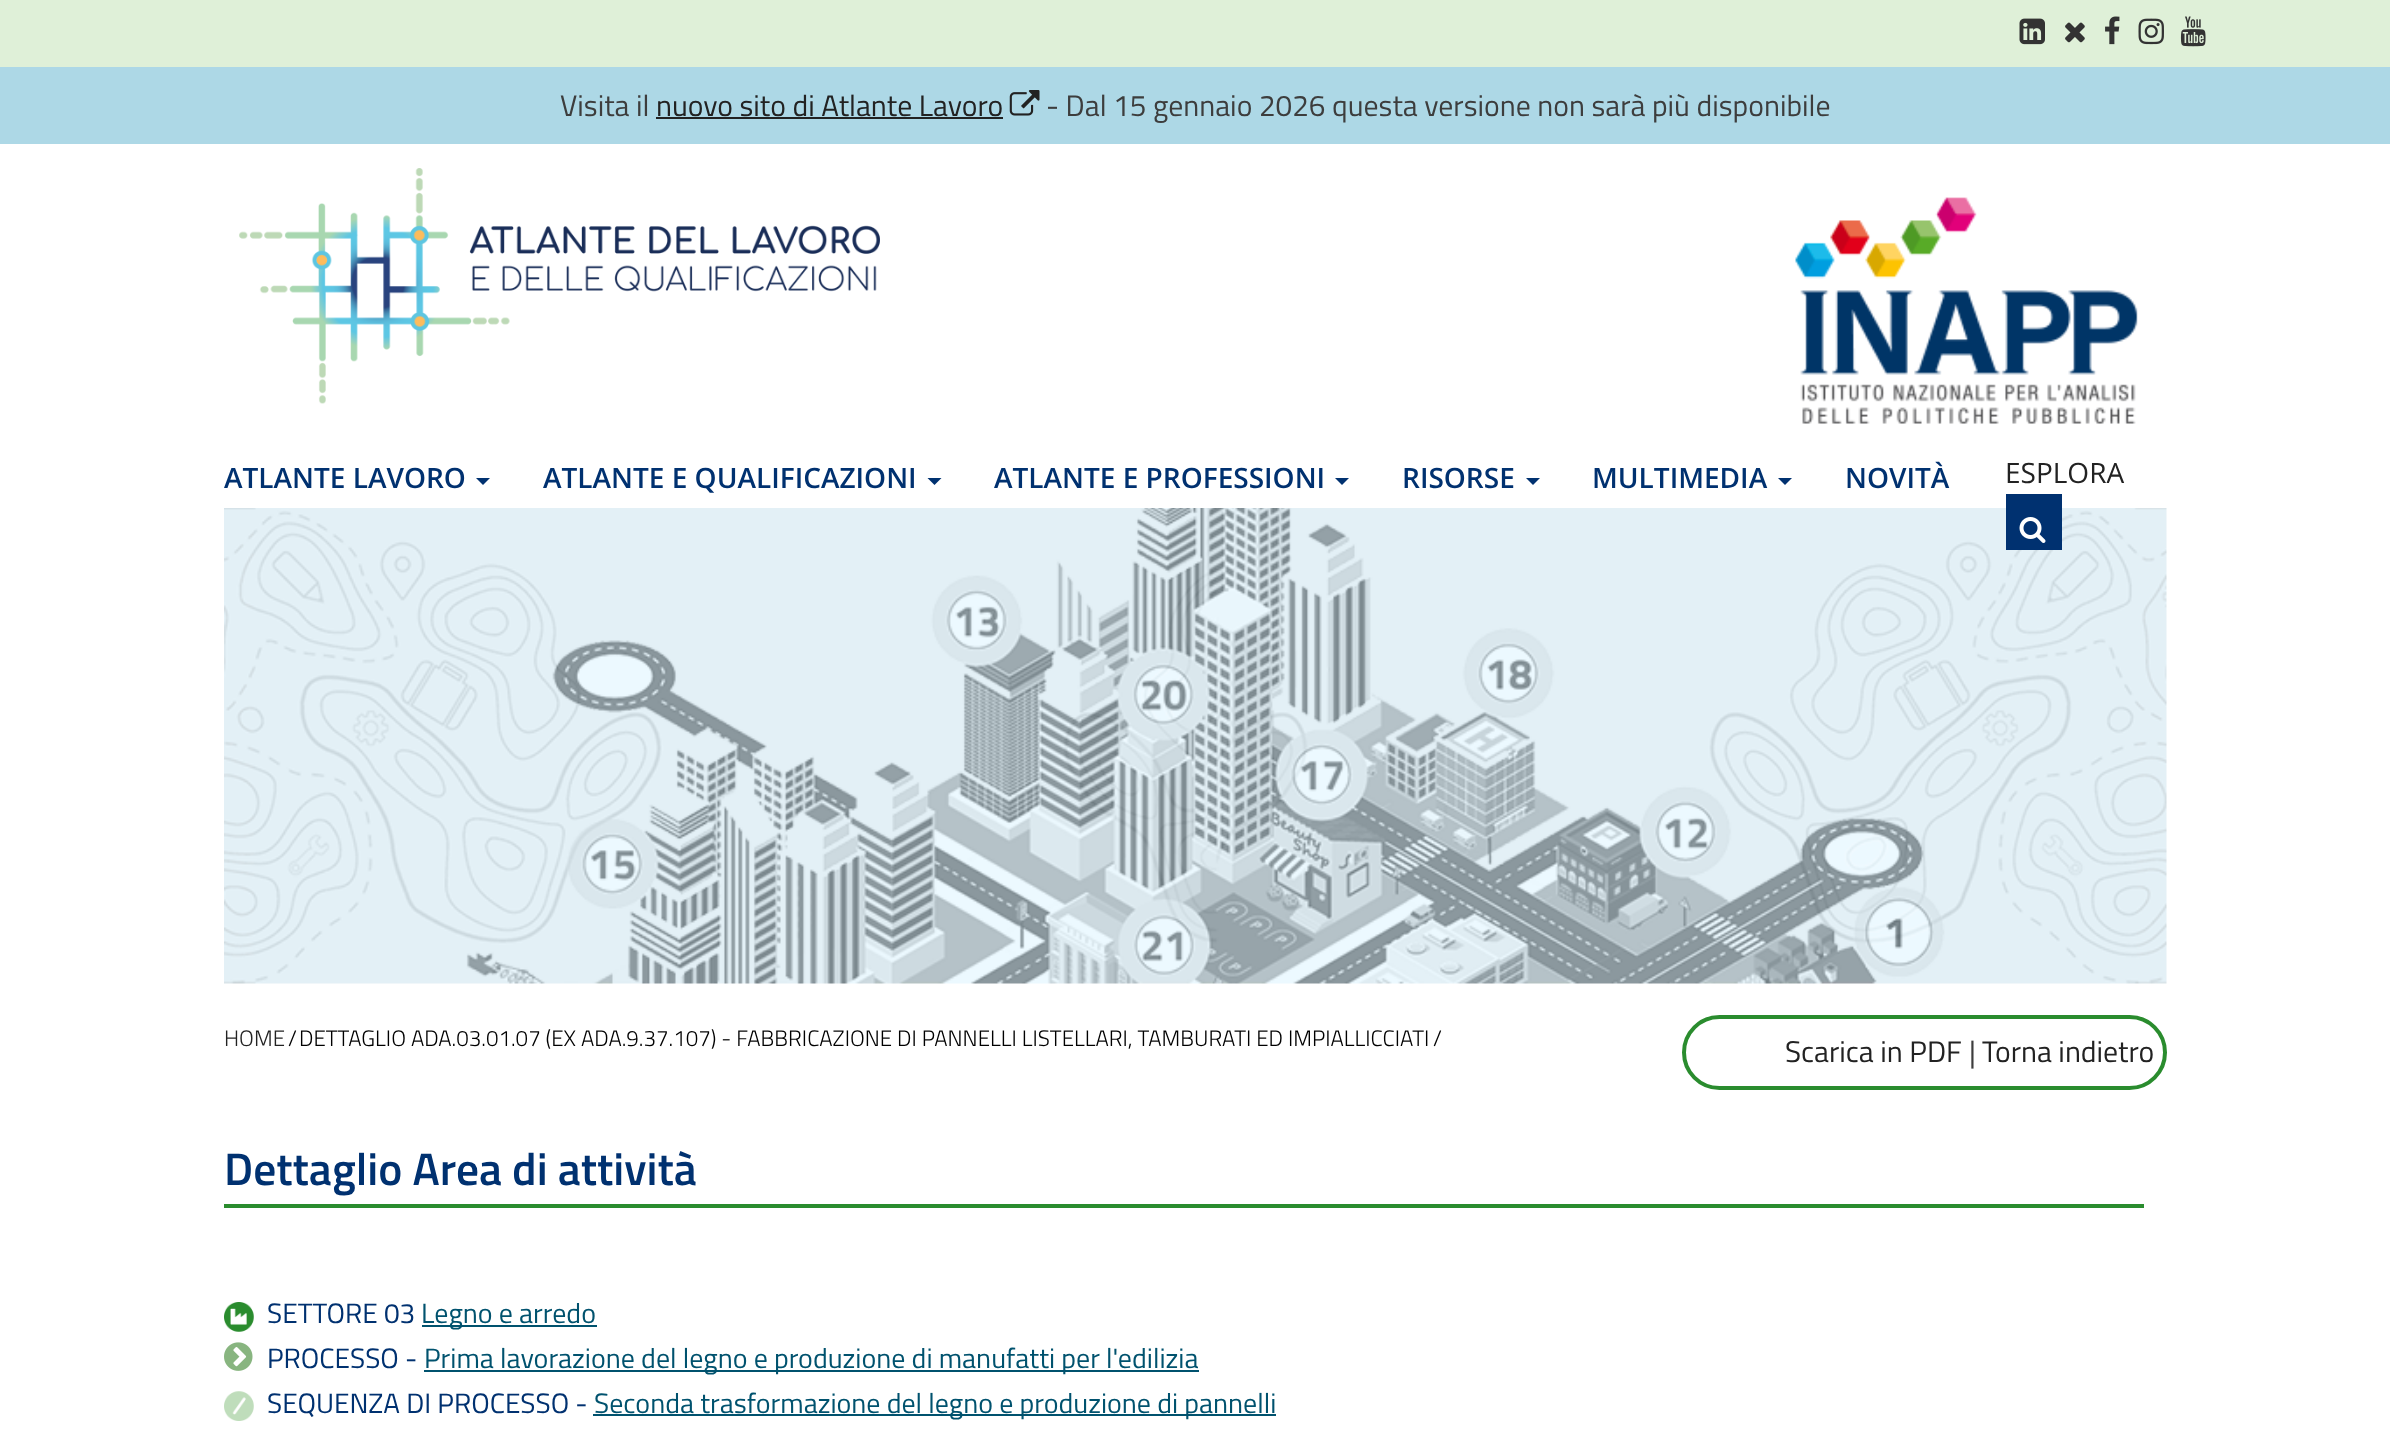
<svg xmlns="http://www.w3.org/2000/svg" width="2390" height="1445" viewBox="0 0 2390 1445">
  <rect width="100%" height="100%" fill="#ffffff"/>
  <rect x="0" y="0" width="2390" height="67" fill="#dff0d8"/>
  <image x="2019" y="18" width="26" height="27" href="img1.png"/>
  <image x="2065" y="22" width="20" height="21" href="img2.png"/>
  <image x="2105" y="16" width="15" height="29" href="img3.png"/>
  <image x="2138" y="18" width="26" height="27" href="img4.png"/>
  <image x="2180" y="16" width="26" height="31" href="img5.png"/>
  <rect x="0" y="67" width="2390" height="77" fill="#add8e6"/>
  <text x="560" y="116" font-family="Titillium Web" font-size="29.75" fill="#3d3d3d">Visita il</text>
  <text x="656" y="116" font-family="Titillium Web" font-size="29.75" fill="#222222">nuovo sito di Atlante Lavoro</text>
  <rect x="656" y="117" width="347" height="2" fill="#222222"/>
  <image x="1009" y="90" width="31" height="26" href="img6.png"/>
  <text x="1046" y="116" font-family="Titillium Web" font-size="29.75" fill="#3d3d3d">- Dal 15 gennaio 2026 questa versione non sarà più disponibile</text>
  <image x="239" y="168" width="641" height="236" href="img7.png"/>
  <image x="1795" y="197" width="343" height="227" href="img8.png"/>
  <text x="224" y="488" font-family="Open Sans" font-size="28" font-weight="600" fill="#003170">ATLANTE LAVORO</text>
  <path d="M476 478H490L483 485Z" fill="#003170"/>
  <text x="543" y="488" font-family="Open Sans" font-size="28" font-weight="600" fill="#003170">ATLANTE E QUALIFICAZIONI</text>
  <path d="M927.5 478H941.5L934.5 485Z" fill="#003170"/>
  <text x="994" y="488" font-family="Open Sans" font-size="28" font-weight="600" fill="#003170">ATLANTE E PROFESSIONI</text>
  <path d="M1335 478H1349L1342 485Z" fill="#003170"/>
  <text x="1402" y="488" font-family="Open Sans" font-size="28" font-weight="600" fill="#003170">RISORSE</text>
  <path d="M1526 478H1540L1533 485Z" fill="#003170"/>
  <text x="1592" y="488" font-family="Open Sans" font-size="28" font-weight="600" fill="#003170">MULTIMEDIA</text>
  <path d="M1778 478H1792L1785 485Z" fill="#003170"/>
  <text x="1845" y="488" font-family="Open Sans" font-size="28" font-weight="600" fill="#003170">NOVITÀ</text>
  <text x="2005" y="483" font-family="Open Sans" font-size="28" fill="#222222">ESPLORA</text>
  <image x="224" y="508" width="1943" height="476" href="img10.png"/>
  <rect x="2006" y="494" width="56" height="56" fill="#003170"/>
  <image x="2019" y="517" width="27" height="26" href="img9.png"/>
  <text x="224" y="1046" font-family="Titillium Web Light" font-size="22.4" font-weight="300" fill="#222222">HOME</text>
  <text x="288" y="1046" font-family="Titillium Web Light" font-size="22.4" font-weight="300" fill="#000000">/</text>
  <text x="299" y="1046" font-family="Titillium Web Light" font-size="22.4" font-weight="300" fill="#000000">DETTAGLIO ADA.03.01.07 (EX ADA.9.37.107) - FABBRICAZIONE DI PANNELLI LISTELLARI, TAMBURATI ED IMPIALLICCIATI</text>
  <text x="1433" y="1046" font-family="Titillium Web Light" font-size="22.4" font-weight="300" fill="#000000">/</text>
  <rect x="1684" y="1017" width="481" height="71" rx="35.5" fill="none" stroke="#2a8c2e" stroke-width="4"/>
  <text x="1785" y="1062" font-family="Titillium Web" font-size="29.75" fill="#222222">Scarica in PDF</text>
  <text x="1969" y="1062" font-family="Titillium Web" font-size="29.75" fill="#3d3d3d">|</text>
  <text x="1982" y="1062" font-family="Titillium Web" font-size="29.75" fill="#222222">Torna indietro</text>
  <text x="224" y="1185" font-family="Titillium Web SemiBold" font-size="45.5" font-weight="600" fill="#003170">Dettaglio Area di attività</text>
  <rect x="224" y="1204" width="1920" height="4" fill="#2a8c2e"/>
  <image x="224" y="1302" width="30" height="30" href="img11.png"/>
  <text x="267" y="1323" font-family="Titillium Web" font-size="28" fill="#003170">SETTORE 03</text>
  <rect x="422" y="1325" width="175" height="2" fill="#00526e"/>
  <text x="421" y="1323" font-family="Titillium Web" font-size="28" fill="#00526e">Legno e arredo</text>
  <image x="224" y="1342" width="29" height="29" href="img12.png"/>
  <text x="267" y="1368" font-family="Titillium Web" font-size="28" fill="#003170">PROCESSO -</text>
  <rect x="424" y="1370" width="775" height="2" fill="#00526e"/>
  <text x="424" y="1368" font-family="Titillium Web" font-size="28" fill="#00526e">Prima lavorazione del legno e produzione di manufatti per l'edilizia</text>
  <image x="224" y="1391" width="30" height="30" href="img13.png"/>
  <text x="267" y="1413" font-family="Titillium Web" font-size="28" fill="#003170">SEQUENZA DI PROCESSO -</text>
  <rect x="593" y="1414" width="683" height="2" fill="#00526e"/>
  <text x="594" y="1413" font-family="Titillium Web" font-size="28" fill="#00526e">Seconda trasformazione del legno e produzione di pannelli</text>
</svg>
